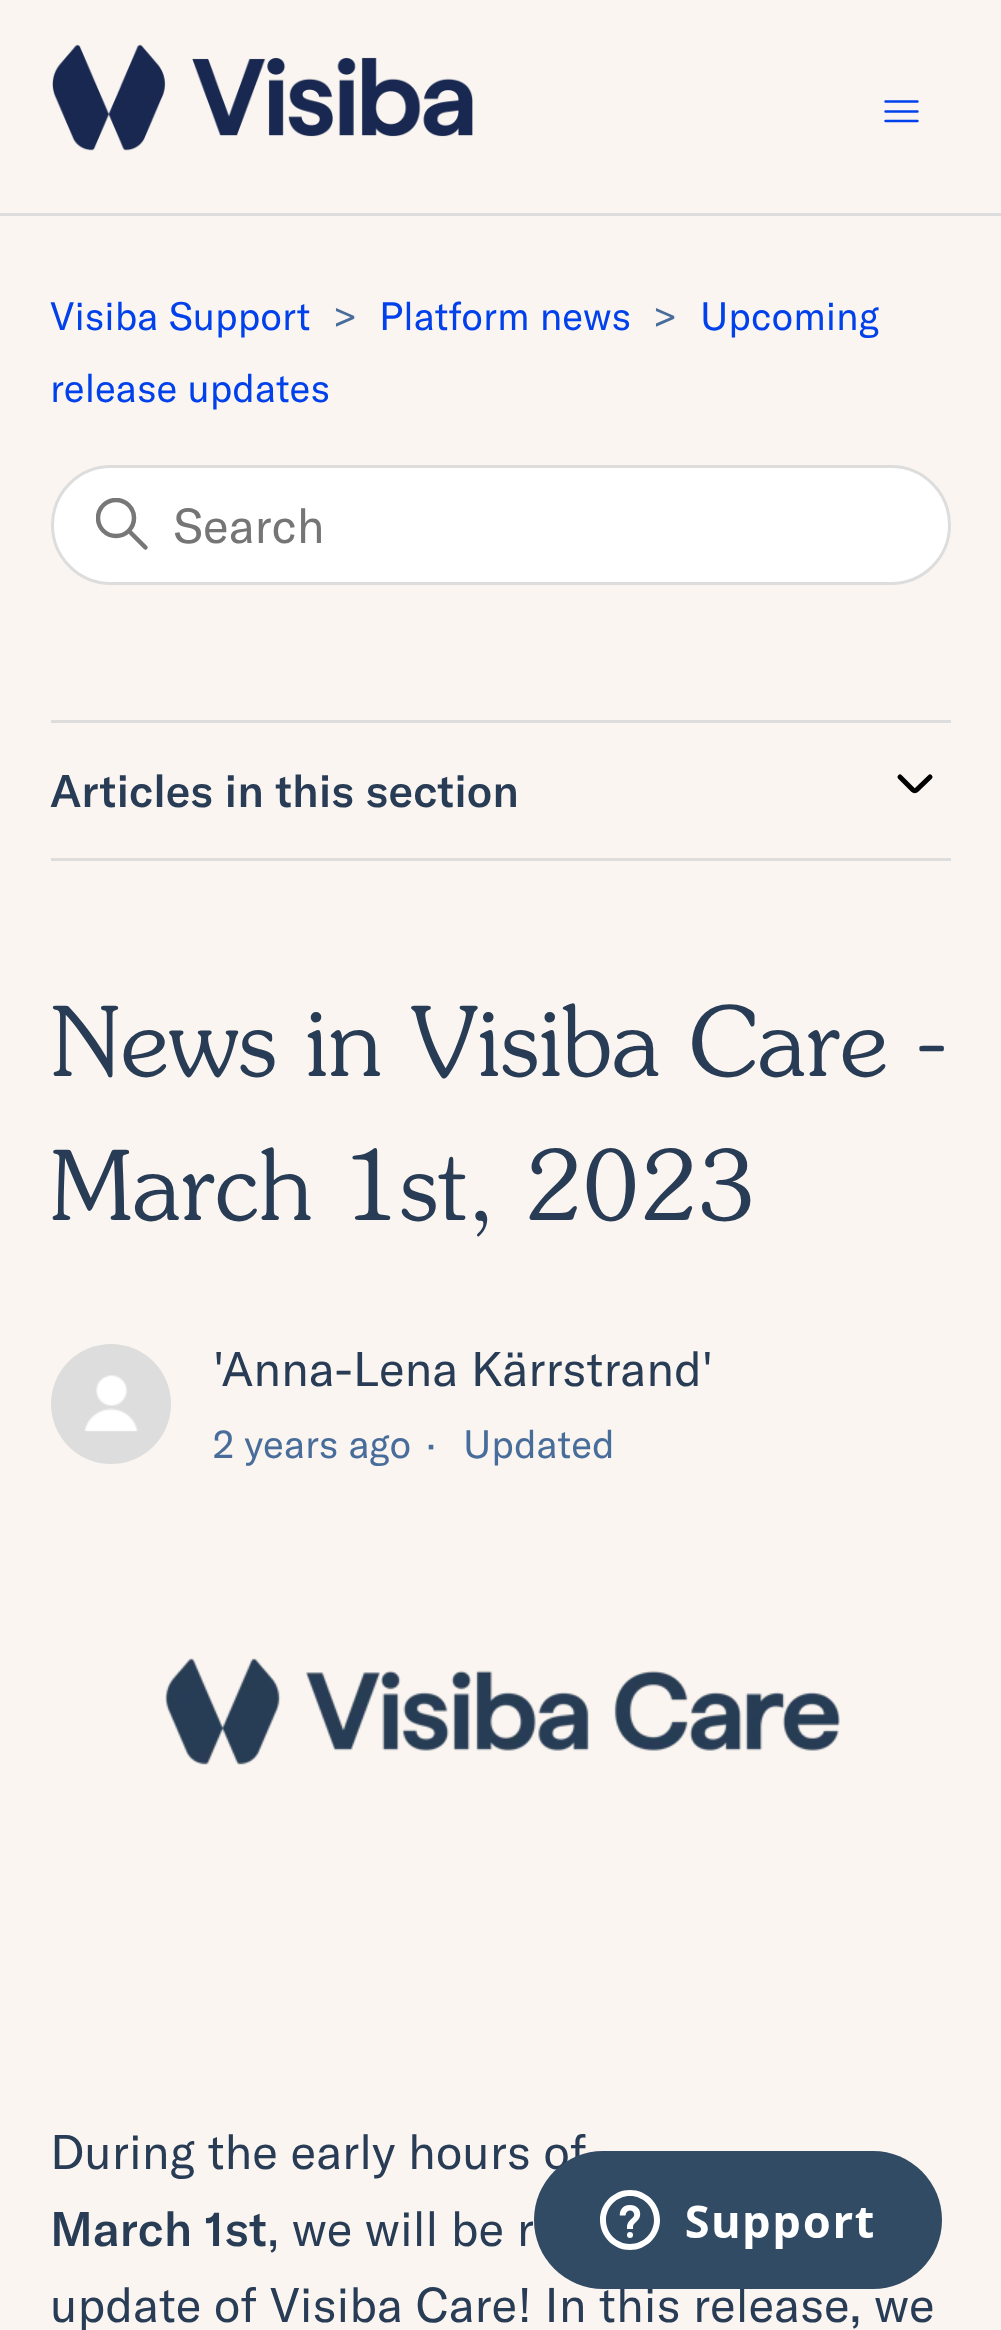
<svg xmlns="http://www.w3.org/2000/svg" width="1001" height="2330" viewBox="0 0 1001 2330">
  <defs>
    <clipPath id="clip1"><rect x="96" y="498" width="54" height="54"/></clipPath>
  </defs>
  <rect width="100%" height="100%" fill="#faf5f0"/>
  <image x="52" y="44" width="421" height="107" href="img1.png"/>
  <path d="M885.5 101.5H917.5M885.5 111.5H917.5M885.5 121H917.5" fill="none" stroke="#0041eb" stroke-width="2.4" stroke-linecap="round"/>
  <rect x="0" y="213" width="1001" height="3" fill="#dddddd"/>
  <text x="50" y="330" font-family="GT America" font-size="39" fill="#0041eb">Visiba Support</text>
  <text x="333" y="330" font-family="GT America" font-size="39" fill="#496d9a">&gt;</text>
  <text x="379" y="330" font-family="GT America" font-size="39" fill="#0041eb">Platform news</text>
  <text x="653" y="330" font-family="GT America" font-size="39" fill="#496d9a">&gt;</text>
  <text x="700" y="330" font-family="GT America" font-size="39" fill="#0041eb">Upcoming</text>
  <text x="50" y="402" font-family="GT America" font-size="39" fill="#0041eb">release updates</text>
  <rect x="52.5" y="466.5" width="897" height="117" rx="58.5" fill="#ffffff" stroke="#dddddd" stroke-width="3"/>
  <g clip-path="url(#clip1)">
    <circle cx="116" cy="518" r="18" fill="none" stroke="#777777" stroke-width="4.5"/>
  </g>
  <path d="M145.5 547.5L130 532" fill="none" stroke="#777777" stroke-width="4.5" stroke-linecap="round"/>
  <text x="173" y="543" font-family="GT America" font-size="48" fill="#757575">Search</text>
  <rect x="51" y="720" width="900" height="3" fill="#dddddd"/>
  <rect x="51" y="858" width="900" height="3" fill="#dddddd"/>
  <text x="50" y="807" font-family="GT America" font-size="45" font-weight="500" fill="#283c55">Articles in this section</text>
  <path d="M900 777L913 790C914 791 915.5 791 916.5 790L930 777" fill="none" stroke="#000000" stroke-width="5" stroke-linecap="round"/>
  <text x="50" y="1076" font-family="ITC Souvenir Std" font-size="96" font-weight="300" fill="#283c55">News in Visiba Care -</text>
  <text x="50" y="1220" font-family="ITC Souvenir Std" font-size="96" font-weight="300" fill="#283c55">March 1st, 2023</text>
  <image x="51" y="1344" width="120" height="120" href="img2.png"/>
  <text x="213" y="1386" font-family="GT America" font-size="48" fill="#283c55">'Anna-Lena Kärrstrand'</text>
  <text x="213" y="1458" font-family="GT America" font-size="39" fill="#496d9a">2 years ago</text>
  <text x="426" y="1458" font-family="GT America" font-size="39" fill="#496d9a">·</text>
  <text x="463" y="1458" font-family="GT America" font-size="39" fill="#496d9a">Updated</text>
  <image x="165" y="1658" width="675" height="107" href="img3.png"/>
  <text x="50" y="2169" font-family="GT America" font-size="48" fill="#283c55">During the early hours of</text>
  <text x="50" y="2246" font-family="GT America" font-size="48" font-weight="500" fill="#283c55">March 1st</text>
  <text x="267" y="2246" font-family="GT America" font-size="48" fill="#283c55">, we will be r</text>
  <text x="50" y="2322" font-family="GT America" font-size="48" fill="#283c55">update of Visiba Care! In this release, we</text>
  <image x="534" y="2151" width="408" height="138" href="img4.png"/>
</svg>
